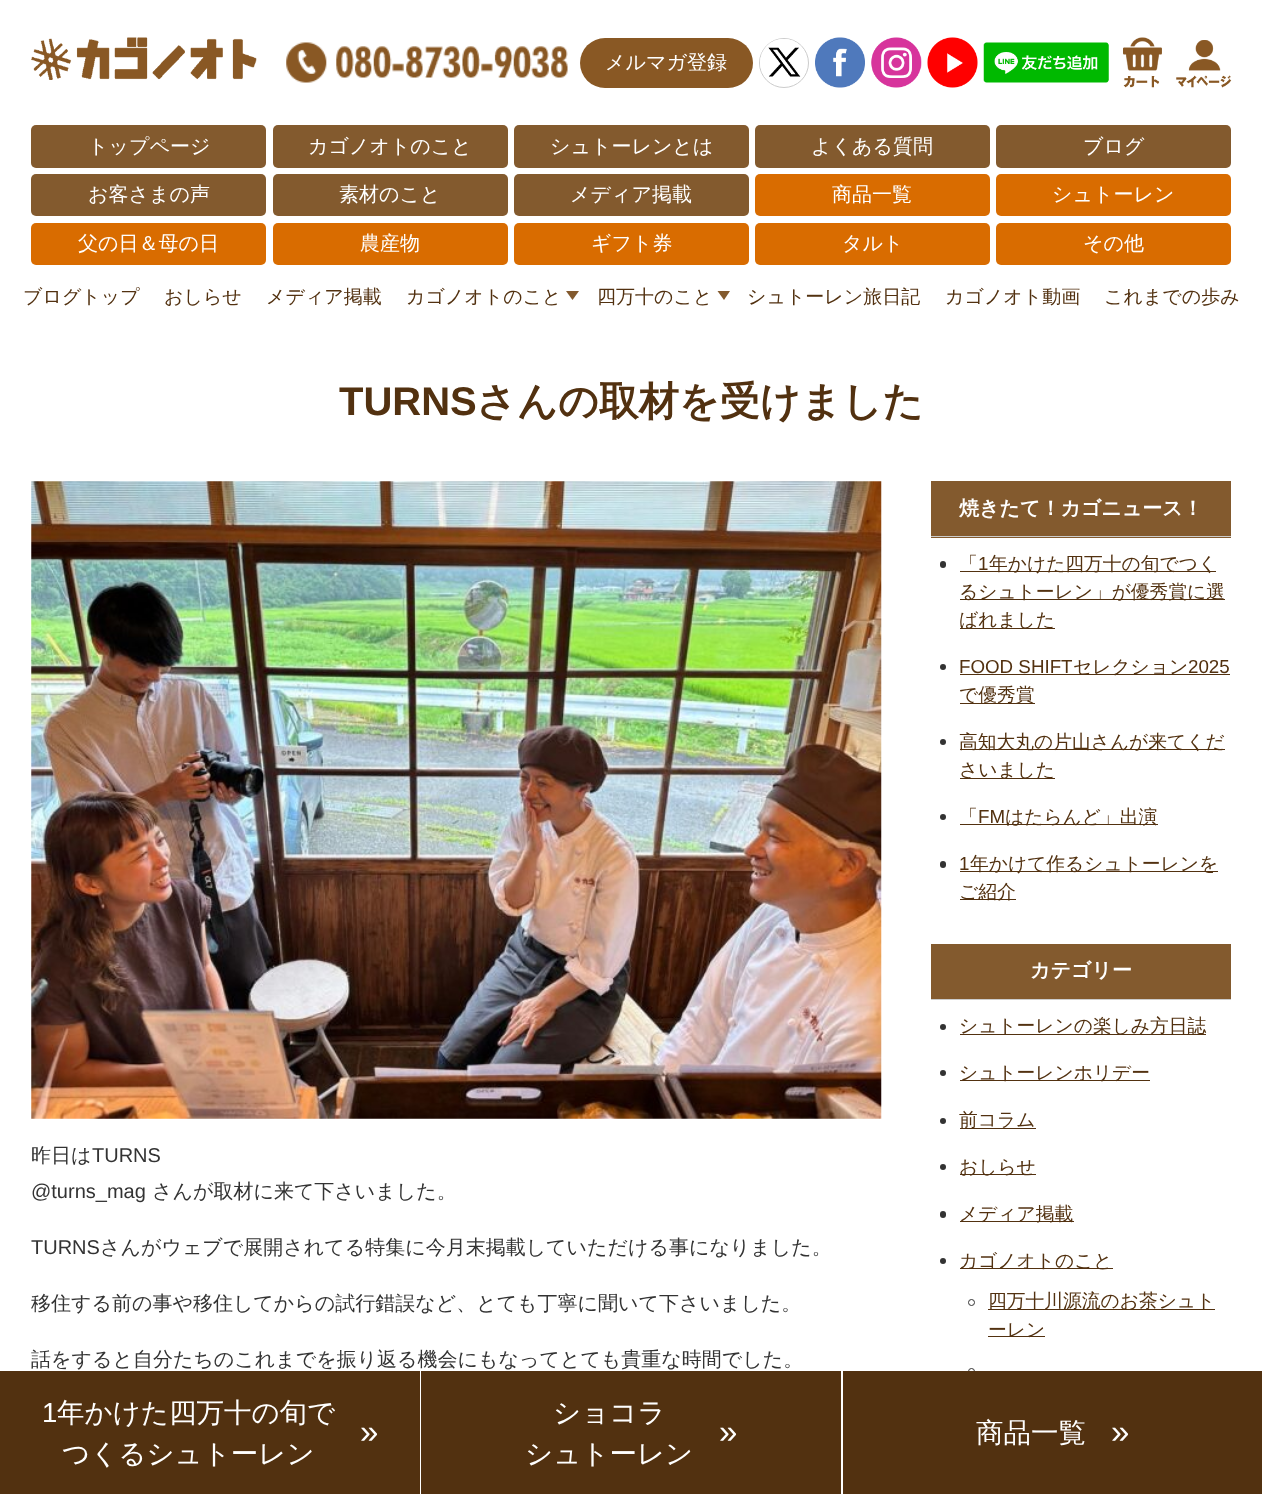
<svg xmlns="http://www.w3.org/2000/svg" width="1262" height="1494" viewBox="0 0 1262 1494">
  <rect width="100%" height="100%" fill="#ffffff"/>
  <image x="31" y="37" width="226" height="43" href="img1.png"/>
  <image x="286" y="42" width="282" height="41" href="img2.png"/>
  <rect x="580" y="38" width="173" height="50" rx="25" fill="#895824"/>
  <text x="605" y="69" font-family="WenQuanYi Zen Hei" font-size="20" font-weight="500" fill="#ffffff">メルマガ登録</text>
  <circle cx="784" cy="63" r="24.5" fill="none" stroke="#cccccc"/>
  <image x="760" y="39" width="44" height="38" href="img3.png"/>
  <image x="815" y="37" width="50" height="51" href="img4.png"/>
  <image x="871" y="37" width="51" height="51" href="img5.png"/>
  <image x="927" y="37" width="51" height="51" href="img6.png"/>
  <image x="983" y="42" width="126" height="41" href="img7.png"/>
  <image x="1123" y="37" width="39" height="51" href="img8.png"/>
  <image x="1176" y="40" width="56" height="48" href="img9.png"/>
  <rect x="31" y="125" width="235" height="43" rx="5" fill="#835a2e"/>
  <text x="88" y="153" font-family="WenQuanYi Zen Hei" font-size="20" font-weight="500" fill="#ffffff">トップページ</text>
  <rect x="273" y="125" width="235" height="43" rx="5" fill="#835a2e"/>
  <text x="308" y="153" font-family="WenQuanYi Zen Hei" font-size="20" font-weight="500" fill="#ffffff">カゴノオトのこと</text>
  <rect x="514" y="125" width="235" height="43" rx="5" fill="#835a2e"/>
  <text x="550" y="153" font-family="WenQuanYi Zen Hei" font-size="20" font-weight="500" fill="#ffffff">シュトーレンとは</text>
  <rect x="755" y="125" width="235" height="43" rx="5" fill="#835a2e"/>
  <text x="811" y="153" font-family="WenQuanYi Zen Hei" font-size="20" font-weight="500" fill="#ffffff">よくある質問</text>
  <rect x="996" y="125" width="235" height="43" rx="5" fill="#835a2e"/>
  <text x="1083" y="153" font-family="WenQuanYi Zen Hei" font-size="20" font-weight="500" fill="#ffffff">ブログ</text>
  <rect x="31" y="174" width="235" height="42" rx="5" fill="#835a2e"/>
  <text x="88" y="201" font-family="WenQuanYi Zen Hei" font-size="20" font-weight="500" fill="#ffffff">お客さまの声</text>
  <rect x="273" y="174" width="235" height="42" rx="5" fill="#835a2e"/>
  <text x="339" y="201" font-family="WenQuanYi Zen Hei" font-size="20" font-weight="500" fill="#ffffff">素材のこと</text>
  <rect x="514" y="174" width="235" height="42" rx="5" fill="#835a2e"/>
  <text x="570" y="201" font-family="WenQuanYi Zen Hei" font-size="20" font-weight="500" fill="#ffffff">メディア掲載</text>
  <rect x="755" y="174" width="235" height="42" rx="5" fill="#d96c00"/>
  <text x="832" y="201" font-family="WenQuanYi Zen Hei" font-size="20" font-weight="500" fill="#ffffff">商品一覧</text>
  <rect x="996" y="174" width="235" height="42" rx="5" fill="#d96c00"/>
  <text x="1052" y="201" font-family="WenQuanYi Zen Hei" font-size="20" font-weight="500" fill="#ffffff">シュトーレン</text>
  <rect x="31" y="223" width="235" height="42" rx="5" fill="#d96c00"/>
  <text x="78" y="250" font-family="WenQuanYi Zen Hei" font-size="20" font-weight="500" fill="#ffffff">父の日＆母の日</text>
  <rect x="273" y="223" width="235" height="42" rx="5" fill="#d96c00"/>
  <text x="360" y="250" font-family="WenQuanYi Zen Hei" font-size="20" font-weight="500" fill="#ffffff">農産物</text>
  <rect x="514" y="223" width="235" height="42" rx="5" fill="#d96c00"/>
  <text x="591" y="250" font-family="WenQuanYi Zen Hei" font-size="20" font-weight="500" fill="#ffffff">ギフト券</text>
  <rect x="755" y="223" width="235" height="42" rx="5" fill="#d96c00"/>
  <text x="842" y="250" font-family="WenQuanYi Zen Hei" font-size="20" font-weight="500" fill="#ffffff">タルト</text>
  <rect x="996" y="223" width="235" height="42" rx="5" fill="#d96c00"/>
  <text x="1083" y="250" font-family="WenQuanYi Zen Hei" font-size="20" font-weight="500" fill="#ffffff">その他</text>
  <text x="23" y="303" font-family="WenQuanYi Zen Hei" font-size="19" font-weight="500" fill="#523110">ブログトップ</text>
  <text x="164" y="303" font-family="WenQuanYi Zen Hei" font-size="19" font-weight="500" fill="#523110">おしらせ</text>
  <text x="266" y="303" font-family="WenQuanYi Zen Hei" font-size="19" font-weight="500" fill="#523110">メディア掲載</text>
  <text x="406" y="303" font-family="WenQuanYi Zen Hei" font-size="19" font-weight="500" fill="#523110">カゴノオトのこと</text>
  <path d="M566 291H579L572.5 300Z" fill="#835a2e"/>
  <text x="597" y="303" font-family="WenQuanYi Zen Hei" font-size="19" font-weight="500" fill="#523110">四万十のこと</text>
  <path d="M717.5 291H730L724 300Z" fill="#835a2e"/>
  <text x="747" y="303" font-family="WenQuanYi Zen Hei" font-size="19" font-weight="500" fill="#523110">シュトーレン旅日記</text>
  <text x="945" y="303" font-family="WenQuanYi Zen Hei" font-size="19" font-weight="500" fill="#523110">カゴノオト動画</text>
  <text x="1104" y="303" font-family="WenQuanYi Zen Hei" font-size="19" font-weight="500" fill="#523110">これまでの歩み</text>
  <text x="339" y="415" font-family="Liberation Sans" font-size="40" font-weight="bold" fill="#523110">TURNS</text>
  <text x="476" y="415" font-family="WenQuanYi Zen Hei" font-size="40" font-weight="bold" fill="#523110">さんの取材を受けました</text>
  <image x="31" y="481" width="851" height="638" href="img10.png"/>
  <text x="31" y="1162" font-family="WenQuanYi Zen Hei" font-size="20" font-weight="500" fill="#333333">昨日は</text>
  <text x="92" y="1162" font-family="Liberation Sans" font-size="20" fill="#333333">TURNS</text>
  <text x="31" y="1198" font-family="Liberation Sans" font-size="20" fill="#333333">@turns_mag</text>
  <text x="152" y="1198" font-family="WenQuanYi Zen Hei" font-size="20" font-weight="500" fill="#333333">さんが取材に来て下さいました。</text>
  <text x="31" y="1254" font-family="Liberation Sans" font-size="20" fill="#333333">TURNS</text>
  <text x="100" y="1254" font-family="WenQuanYi Zen Hei" font-size="20" font-weight="500" fill="#333333">さんがウェブで展開されてる特集に今月末掲載していただける事になりました。</text>
  <text x="31" y="1310" font-family="WenQuanYi Zen Hei" font-size="20" font-weight="500" fill="#333333">移住する前の事や移住してからの試行錯誤など、とても丁寧に聞いて下さいました。</text>
  <text x="31" y="1366" font-family="WenQuanYi Zen Hei" font-size="20" font-weight="500" fill="#333333">話をすると自分たちのこれまでを振り返る機会にもなってとても貴重な時間でした。</text>
  <rect x="931" y="481" width="300" height="57" fill="#835a2e"/>
  <rect x="931" y="536" width="300" height="1" fill="#cccccc"/>
  <text x="959" y="515" font-family="WenQuanYi Zen Hei" font-size="20" font-weight="bold" fill="#ffffff">焼きたて！カゴニュース！</text>
  <rect x="940" y="561" width="6" height="7" rx="3" fill="#333333"/>
  <text x="959" y="570" font-family="WenQuanYi Zen Hei" font-size="18.75" font-weight="500" fill="#523110">「</text>
  <text x="978" y="570" font-family="Liberation Sans" font-size="18.75" fill="#523110">1</text>
  <rect x="960" y="571" width="256" height="1" fill="#523110"/>
  <text x="989" y="570" font-family="WenQuanYi Zen Hei" font-size="18.75" font-weight="500" fill="#523110">年かけた四万十の旬でつく</text>
  <rect x="960" y="599" width="265" height="1" fill="#523110"/>
  <text x="959" y="598" font-family="WenQuanYi Zen Hei" font-size="18.75" font-weight="500" fill="#523110">るシュトーレン」が優秀賞に選</text>
  <rect x="960" y="628" width="95" height="1" fill="#523110"/>
  <text x="959" y="626" font-family="WenQuanYi Zen Hei" font-size="18.75" font-weight="500" fill="#523110">ばれました</text>
  <circle cx="943" cy="667" r="3" fill="#333333"/>
  <text x="959" y="673" font-family="Liberation Sans" font-size="18.75" fill="#523110">FOOD SHIFT</text>
  <rect x="960" y="674" width="270" height="1" fill="#523110"/>
  <text x="1073" y="673" font-family="WenQuanYi Zen Hei" font-size="18.75" font-weight="500" fill="#523110">セレクション</text>
  <text x="1188" y="673" font-family="Liberation Sans" font-size="18.75" fill="#523110">2025</text>
  <rect x="960" y="703" width="75" height="1" fill="#523110"/>
  <text x="959" y="701" font-family="WenQuanYi Zen Hei" font-size="18.75" font-weight="500" fill="#523110">で優秀賞</text>
  <circle cx="943" cy="742" r="3" fill="#333333"/>
  <rect x="960" y="749" width="265" height="1" fill="#523110"/>
  <text x="959" y="748" font-family="WenQuanYi Zen Hei" font-size="18.75" font-weight="500" fill="#523110">高知大丸の片山さんが来てくだ</text>
  <rect x="960" y="778" width="95" height="1" fill="#523110"/>
  <text x="959" y="776" font-family="WenQuanYi Zen Hei" font-size="18.75" font-weight="500" fill="#523110">さいました</text>
  <circle cx="943" cy="817" r="3" fill="#333333"/>
  <text x="959" y="823" font-family="WenQuanYi Zen Hei" font-size="18.75" font-weight="500" fill="#523110">「</text>
  <text x="978" y="823" font-family="Liberation Sans" font-size="18.75" fill="#523110">FM</text>
  <rect x="960" y="824" width="198" height="1" fill="#523110"/>
  <text x="1005" y="823" font-family="WenQuanYi Zen Hei" font-size="18.75" font-weight="500" fill="#523110">はたらんど」出演</text>
  <rect x="940" y="861" width="6" height="7" rx="3" fill="#333333"/>
  <text x="959" y="870" font-family="Liberation Sans" font-size="18.75" fill="#523110">1</text>
  <rect x="960" y="871" width="258" height="1" fill="#523110"/>
  <text x="970" y="870" font-family="WenQuanYi Zen Hei" font-size="18.75" font-weight="500" fill="#523110">年かけて作るシュトーレンを</text>
  <rect x="960" y="899" width="56" height="1" fill="#523110"/>
  <text x="959" y="898" font-family="WenQuanYi Zen Hei" font-size="18.75" font-weight="500" fill="#523110">ご紹介</text>
  <rect x="931" y="944" width="300" height="55" fill="#835a2e"/>
  <rect x="931" y="999" width="300" height="1" fill="#cccccc"/>
  <text x="1030" y="977" font-family="WenQuanYi Zen Hei" font-size="20" font-weight="bold" fill="#ffffff">カテゴリー</text>
  <circle cx="943" cy="1027" r="3" fill="#333333"/>
  <rect x="960" y="1034" width="246" height="1" fill="#523110"/>
  <text x="959" y="1032" font-family="WenQuanYi Zen Hei" font-size="18.75" font-weight="500" fill="#523110">シュトーレンの楽しみ方日誌</text>
  <circle cx="943" cy="1073" r="3" fill="#333333"/>
  <rect x="960" y="1080" width="190" height="1" fill="#523110"/>
  <text x="959" y="1079" font-family="WenQuanYi Zen Hei" font-size="18.75" font-weight="500" fill="#523110">シュトーレンホリデー</text>
  <circle cx="943" cy="1121" r="3" fill="#333333"/>
  <rect x="960" y="1128" width="76" height="1" fill="#523110"/>
  <text x="959" y="1126" font-family="WenQuanYi Zen Hei" font-size="18.75" font-weight="500" fill="#523110">前コラム</text>
  <circle cx="943" cy="1167" r="3" fill="#333333"/>
  <rect x="960" y="1174" width="76" height="1" fill="#523110"/>
  <text x="959" y="1173" font-family="WenQuanYi Zen Hei" font-size="18.75" font-weight="500" fill="#523110">おしらせ</text>
  <rect x="940" y="1211" width="6" height="7" rx="3" fill="#333333"/>
  <rect x="960" y="1221" width="114" height="1" fill="#523110"/>
  <text x="959" y="1220" font-family="WenQuanYi Zen Hei" font-size="18.75" font-weight="500" fill="#523110">メディア掲載</text>
  <circle cx="943" cy="1261" r="3" fill="#333333"/>
  <rect x="960" y="1268" width="153" height="1" fill="#523110"/>
  <text x="959" y="1267" font-family="WenQuanYi Zen Hei" font-size="18.75" font-weight="500" fill="#523110">カゴノオトのこと</text>
  <circle cx="971.5" cy="1302.5" r="3" fill="none" stroke="#333333"/>
  <rect x="988" y="1309" width="227" height="1" fill="#523110"/>
  <text x="988" y="1307" font-family="WenQuanYi Zen Hei" font-size="18.75" font-weight="500" fill="#523110">四万十川源流のお茶シュト</text>
  <rect x="988" y="1336" width="57" height="1" fill="#523110"/>
  <text x="988" y="1336" font-family="WenQuanYi Zen Hei" font-size="18.75" font-weight="500" fill="#523110">ーレン</text>
  <circle cx="971.5" cy="1371.5" r="3" fill="none" stroke="#333333"/>
  <rect x="0" y="1371" width="420" height="123" fill="#523110"/>
  <text x="42" y="1422" font-family="Liberation Sans" font-size="27.5" fill="#ffffff">1</text>
  <text x="57" y="1422" font-family="WenQuanYi Zen Hei" font-size="27.5" font-weight="500" fill="#ffffff">年かけた四万十の旬で</text>
  <text x="360" y="1443" font-family="Liberation Sans" font-size="33" fill="#ffffff">»</text>
  <text x="62" y="1463" font-family="WenQuanYi Zen Hei" font-size="27.5" font-weight="500" fill="#ffffff">つくるシュトーレン</text>
  <rect x="421" y="1371" width="420" height="123" fill="#523110"/>
  <text x="553" y="1422" font-family="WenQuanYi Zen Hei" font-size="27.5" font-weight="500" fill="#ffffff">ショコラ</text>
  <text x="719" y="1443" font-family="Liberation Sans" font-size="33" fill="#ffffff">»</text>
  <text x="525" y="1463" font-family="WenQuanYi Zen Hei" font-size="27.5" font-weight="500" fill="#ffffff">シュトーレン</text>
  <rect x="843" y="1371" width="419" height="123" fill="#523110"/>
  <text x="976" y="1442" font-family="WenQuanYi Zen Hei" font-size="27.5" font-weight="500" fill="#ffffff">商品一覧</text>
  <text x="1111" y="1443" font-family="Liberation Sans" font-size="33" fill="#ffffff">»</text>
</svg>
